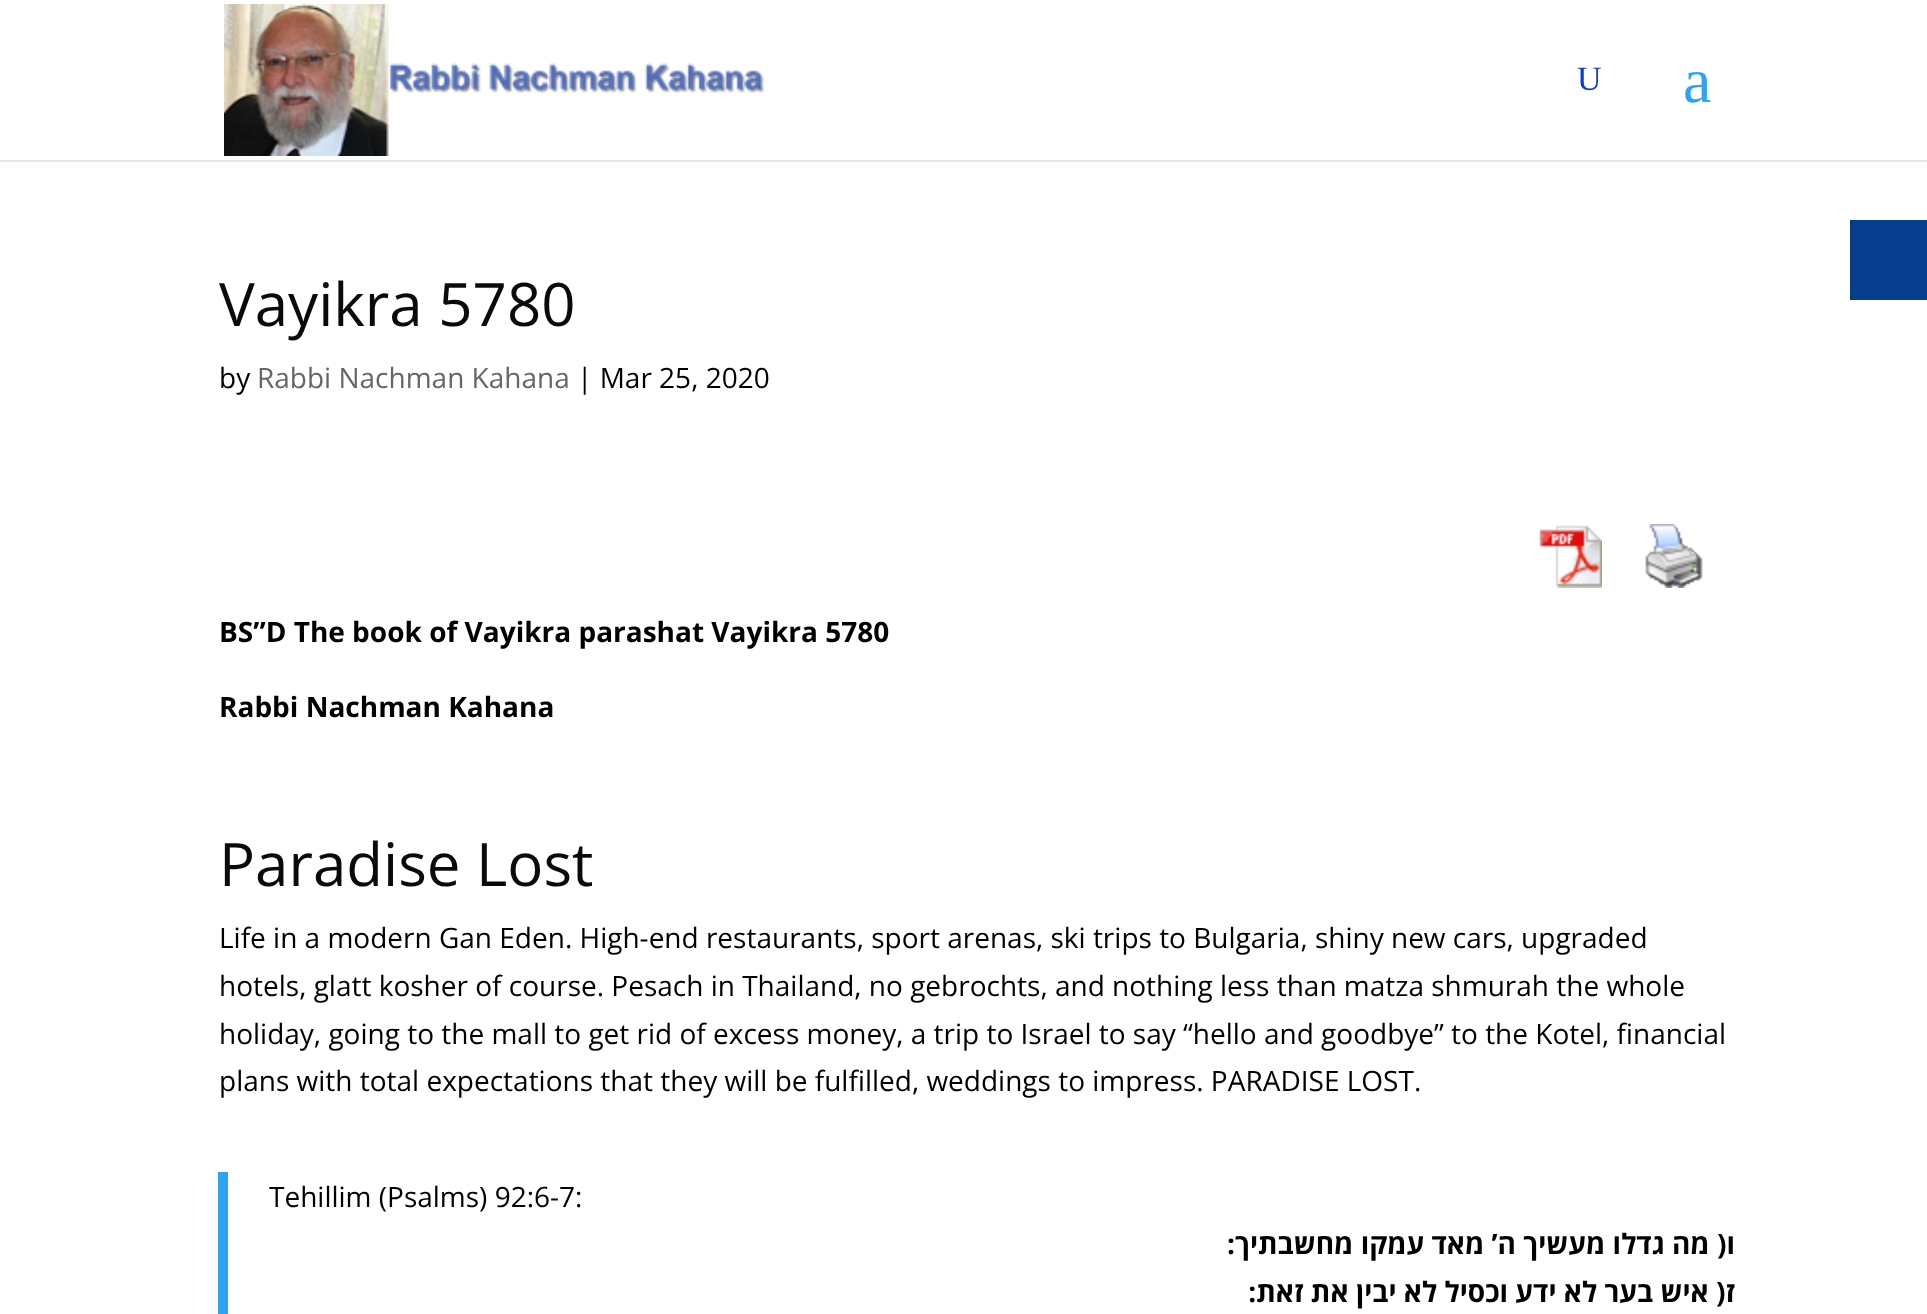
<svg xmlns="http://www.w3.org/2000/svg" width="1927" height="1314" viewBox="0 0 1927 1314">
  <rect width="100%" height="100%" fill="#ffffff"/>
  <rect x="0" y="160" width="1927" height="2" fill="#e6e6e6"/>
  <image x="224" y="4" width="541" height="152" href="img1.png"/>
  <text x="1577" y="90" font-family="Liberation Serif" font-size="34" fill="#0a3cd5">U</text>
  <text x="1683" y="102" font-family="Liberation Serif" font-size="64" fill="#2ea3f2">a</text>
  <text x="219" y="326" font-family="Open Sans" font-size="60" fill="#0a0a0a">Vayikra 5780</text>
  <text x="219" y="388" font-family="Open Sans" font-size="28" fill="#000000">by</text>
  <text x="257" y="388" font-family="Open Sans" font-size="28" fill="#666666">Rabbi Nachman Kahana</text>
  <text x="577" y="388" font-family="Open Sans" font-size="28" fill="#000000">| Mar 25, 2020</text>
  <image x="1539" y="525" width="63" height="63" href="img2.png"/>
  <image x="1645" y="524" width="58" height="64" href="img3.png"/>
  <text x="219" y="642" font-family="Open Sans" font-size="28" font-weight="bold" fill="#000000">BS”D The book of Vayikra parashat Vayikra 5780</text>
  <text x="219" y="717" font-family="Open Sans" font-size="28" font-weight="bold" fill="#000000">Rabbi Nachman Kahana</text>
  <text x="219" y="886" font-family="Open Sans" font-size="60" fill="#0a0a0a">Paradise Lost</text>
  <text x="219" y="948" font-family="Open Sans" font-size="28" fill="#000000">Life in a modern Gan Eden. High-end restaurants, sport arenas, ski trips to Bulgaria, shiny new cars, upgraded</text>
  <text x="219" y="996" font-family="Open Sans" font-size="28" fill="#000000">hotels, glatt kosher of course. Pesach in Thailand, no gebrochts, and nothing less than matza shmurah the whole</text>
  <text x="219" y="1044" font-family="Open Sans" font-size="28" fill="#000000">holiday, going to the mall to get rid of excess money, a trip to Israel to say “hello and goodbye” to the Kotel, financial</text>
  <text x="219" y="1091" font-family="Open Sans" font-size="28" fill="#000000">plans with total expectations that they will be fulfilled, weddings to impress. PARADISE LOST.</text>
  <rect x="218" y="1172" width="10" height="142" fill="#2ea3f2"/>
  <text x="269" y="1207" font-family="Open Sans" font-size="28" fill="#000000">Tehillim (Psalms) 92:6-7:</text>
  <text x="1735" y="1254" font-family="Open Sans" font-size="28" font-weight="bold" direction="rtl" fill="#000000">ו( מה גדלו מעשיך ה’ מאד עמקו מחשבתיך:</text>
  <text x="1735" y="1302" font-family="Open Sans" font-size="28" font-weight="bold" direction="rtl" fill="#000000">ז( איש בער לא ידע וכסיל לא יבין את זאת:</text>
  <rect x="1850" y="220" width="77" height="80" fill="#063d8d"/>
</svg>
